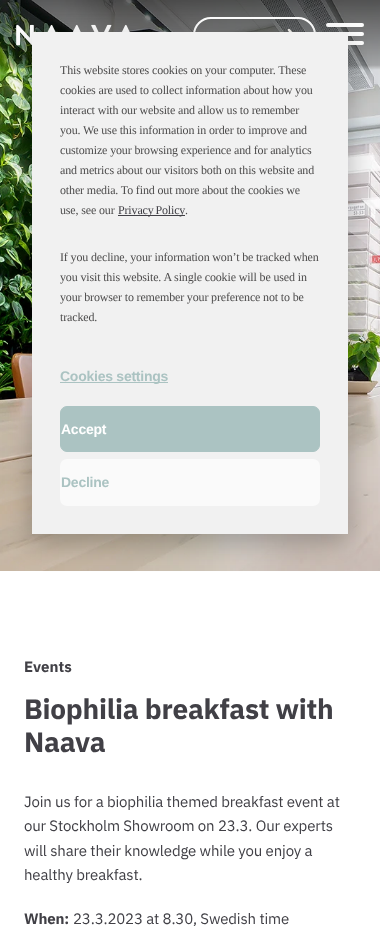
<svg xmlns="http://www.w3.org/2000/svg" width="380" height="952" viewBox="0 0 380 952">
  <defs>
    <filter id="blur1" x="-50%" y="-200%" width="200%" height="500%"><feGaussianBlur stdDeviation="14"/></filter>
  </defs>
  <rect width="100%" height="100%" fill="#ffffff"/>
  <image x="0" y="0" width="380" height="571" href="img2.png"/>
  <image x="16" y="24" width="114" height="22" href="img1.png"/>
  <path d="M289 30L293.5 35.5L289 40" fill="none" stroke="#f6f4ef" stroke-width="2.5" stroke-linecap="round" stroke-linejoin="round"/>
  <rect x="194" y="18" width="121" height="34" rx="17" fill="none" stroke="#ffffff" stroke-width="2"/>
  <rect x="326" y="23" width="38" height="4" rx="2" fill="#ffffff"/>
  <rect x="326" y="32" width="38" height="4" rx="2" fill="#ffffff"/>
  <rect x="326" y="41" width="38" height="4" rx="2" fill="#ffffff"/>
  <rect x="32" y="40" width="316" height="502" fill="#000000" fill-opacity="0.28" filter="url(#blur1)"/>
  <rect x="32" y="32" width="316" height="502" fill="#f1f1f1"/>
  <text x="60" y="74" font-family="Liberation Serif" font-size="12" letter-spacing="-0.15" fill="#4d4c4c">This website stores cookies on your computer. These</text>
  <text x="60" y="94" font-family="Liberation Serif" font-size="12" letter-spacing="-0.15" fill="#4d4c4c">cookies are used to collect information about how you</text>
  <text x="60" y="114" font-family="Liberation Serif" font-size="12" letter-spacing="-0.15" fill="#4d4c4c">interact with our website and allow us to remember</text>
  <text x="60" y="134" font-family="Liberation Serif" font-size="12" letter-spacing="-0.15" fill="#4d4c4c">you. We use this information in order to improve and</text>
  <text x="60" y="154" font-family="Liberation Serif" font-size="12" letter-spacing="-0.15" fill="#4d4c4c">customize your browsing experience and for analytics</text>
  <text x="60" y="174" font-family="Liberation Serif" font-size="12" letter-spacing="-0.15" fill="#4d4c4c">and metrics about our visitors both on this website and</text>
  <text x="60" y="194" font-family="Liberation Serif" font-size="12" letter-spacing="-0.15" fill="#4d4c4c">other media. To find out more about the cookies we</text>
  <text x="60" y="214" font-family="Liberation Serif" font-size="12" letter-spacing="-0.15" fill="#4d4c4c">use, see our</text>
  <rect x="118" y="215" width="67" height="1" fill="#414046"/>
  <text x="118" y="214" word-spacing="-1" font-family="Liberation Serif" font-size="12" letter-spacing="-0.15" fill="#414046">Privacy Policy</text>
  <text x="185" y="214" font-family="Liberation Serif" font-size="12" letter-spacing="-0.15" fill="#4d4c4c">.</text>
  <text x="60" y="261" font-family="Liberation Serif" font-size="12" letter-spacing="-0.15" fill="#4d4c4c">If you decline, your information won’t be tracked when</text>
  <text x="60" y="281" font-family="Liberation Serif" font-size="12" letter-spacing="-0.15" fill="#4d4c4c">you visit this website. A single cookie will be used in</text>
  <text x="60" y="301" font-family="Liberation Serif" font-size="12" letter-spacing="-0.15" fill="#4d4c4c">your browser to remember your preference not to be</text>
  <text x="60" y="321" font-family="Liberation Serif" font-size="12" letter-spacing="-0.15" fill="#4d4c4c">tracked.</text>
  <rect x="60" y="382" width="108" height="1" fill="#abc3c2"/>
  <text x="60" y="381" font-family="Liberation Sans" font-size="14" font-weight="bold" letter-spacing="-0.25" fill="#abc3c2">Cookies settings</text>
  <rect x="60.5" y="406.5" width="259" height="45" rx="6.5" fill="#abc3c2" stroke="#abc3c2"/>
  <text x="61" y="434" font-family="Liberation Sans" font-size="14" font-weight="bold" letter-spacing="-0.25" fill="#ffffff">Accept</text>
  <rect x="60" y="459" width="260" height="47" rx="7" fill="#fafafa"/>
  <text x="61" y="487" font-family="Liberation Sans" font-size="14" font-weight="bold" letter-spacing="-0.25" fill="#abc3c2">Decline</text>
  <text x="24" y="672" font-family="IBM Plex Sans" font-size="15" font-weight="bold" fill="#414046">Events</text>
  <text x="24" y="719" font-family="IBM Plex Sans" font-size="28" font-weight="bold" letter-spacing="-0.25" fill="#414046">Biophilia breakfast with</text>
  <text x="24" y="752" font-family="IBM Plex Sans" font-size="28" font-weight="bold" letter-spacing="-0.25" fill="#414046">Naava</text>
  <text x="24" y="807" font-family="IBM Plex Sans" font-size="15" letter-spacing="-0.15" fill="#414046">Join us for a biophilia themed breakfast event at</text>
  <text x="24" y="831" font-family="IBM Plex Sans" font-size="15" letter-spacing="-0.15" fill="#414046">our Stockholm Showroom on 23.3. Our experts</text>
  <text x="24" y="856" font-family="IBM Plex Sans" font-size="15" letter-spacing="-0.15" fill="#414046">will share their knowledge while you enjoy a</text>
  <text x="24" y="880" font-family="IBM Plex Sans" font-size="15" letter-spacing="-0.15" fill="#414046">healthy breakfast.</text>
  <text x="24" y="924" font-family="IBM Plex Sans" font-size="15" font-weight="bold" letter-spacing="-0.15" fill="#414046">When:</text>
  <text x="73" y="924" font-family="IBM Plex Sans" font-size="15" letter-spacing="-0.15" fill="#414046">23.3.2023 at 8.30, Swedish time</text>
</svg>
